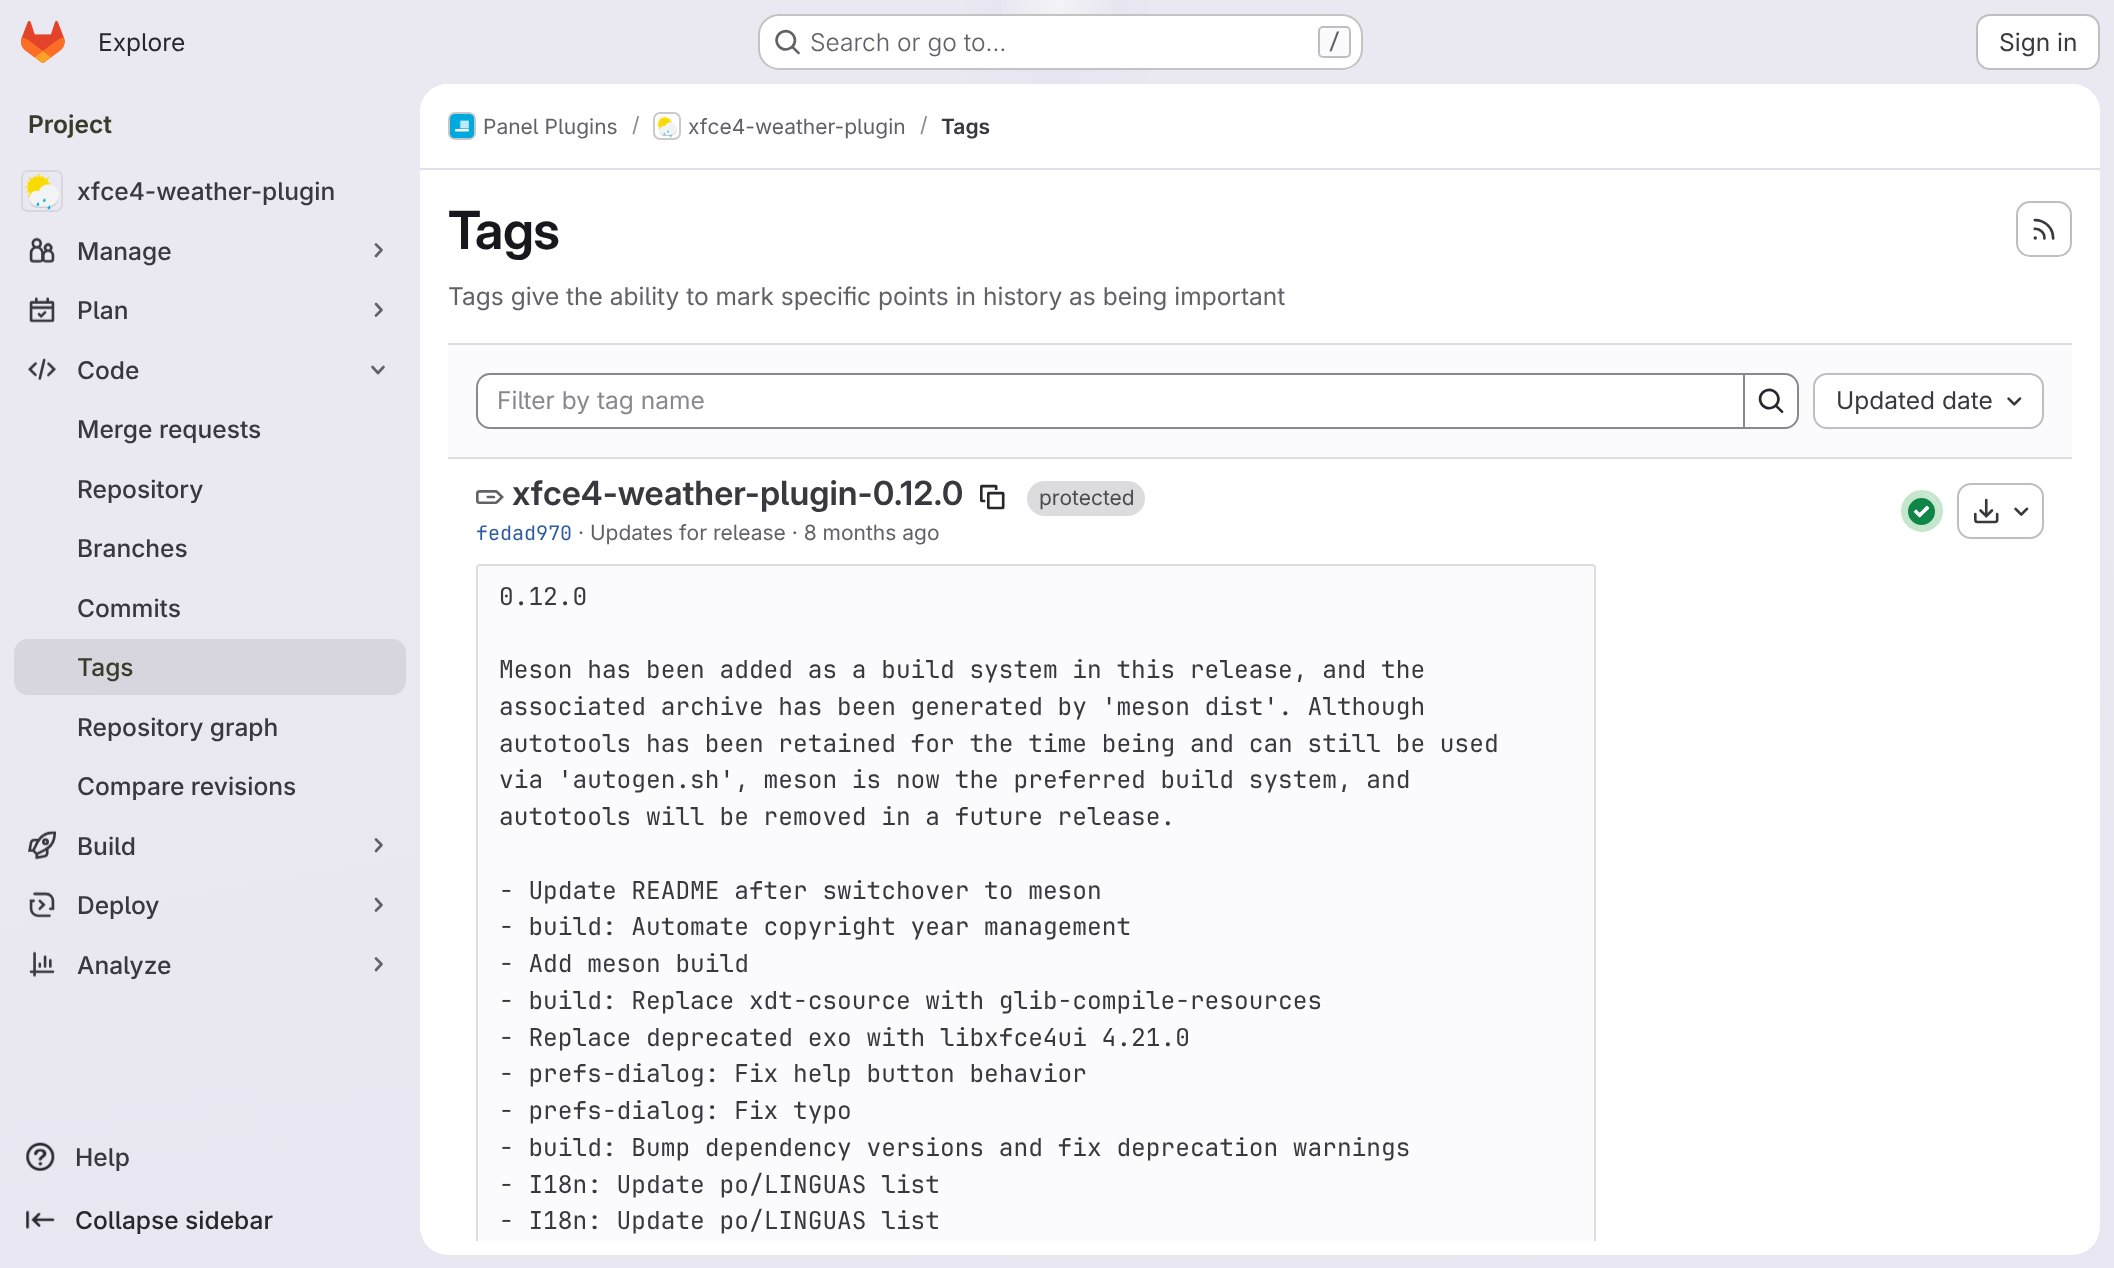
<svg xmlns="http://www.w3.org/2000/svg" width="2114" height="1268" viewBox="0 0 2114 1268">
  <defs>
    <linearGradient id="g1" gradientUnits="userSpaceOnUse" x1="1197" y1="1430" x2="917" y2="-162"><stop offset="0" stop-color="#e8e6f0"/><stop offset="0.7" stop-color="#eae9f2"/></linearGradient>
    <radialGradient id="g2" gradientUnits="userSpaceOnUse" cx="0" cy="0" r="1" gradientTransform="matrix(1057 0 0 1269 1057 0)"><stop offset="0" stop-color="#e4e2ed"/><stop offset="0.12" stop-color="#e4e2ed" stop-opacity="0"/></radialGradient>
    <radialGradient id="g3" gradientUnits="userSpaceOnUse" cx="0" cy="0" r="1" gradientTransform="matrix(1057 0 0 1269 1057 0)"><stop offset="0" stop-color="#e4e2ec"/><stop offset="0.08" stop-color="#e4e2ec" stop-opacity="0"/></radialGradient>
    <radialGradient id="g4" gradientUnits="userSpaceOnUse" cx="1057" cy="0" r="1651"><stop offset="0" stop-color="#ffffff" stop-opacity="0.6"/><stop offset="0.04" stop-color="#ffffff" stop-opacity="0"/></radialGradient>
    <clipPath id="clip1"><rect x="420" y="170" width="1680" height="1071"/></clipPath>
  </defs>
  <rect width="100%" height="100%" fill="#ffffff"/>
  <rect x="0" y="0" width="2114" height="1268" fill="url(#g1)"/>
  <rect x="966" y="0" width="182" height="84" fill="url(#g2)"/>
  <rect x="1037" y="2" width="40" height="31" fill="url(#g3)"/>
  <rect x="1002" y="0" width="110" height="14" fill="url(#g4)"/>
  <image x="21" y="21" width="44" height="42" href="img1.png"/>
  <text x="98" y="51" font-family="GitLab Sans" font-size="24.5" fill="#28272d">Explore</text>
  <rect x="758" y="14" width="605" height="56" rx="21" fill="#ffffff"/>
  <rect x="759" y="15" width="603" height="54" rx="20" fill="none" stroke="#050506" stroke-opacity="0.24" stroke-width="2"/>
  <image x="775" y="29" width="25" height="26" href="img2.png"/>
  <text x="810" y="51" font-family="GitLab Sans" font-size="24.5" font-weight="300" fill="#626168">Search or go to…</text>
  <rect x="1319" y="27" width="31" height="30" rx="4" fill="#fbfafd" stroke="#bfbfc3" stroke-width="2"/>
  <text x="1328" y="49" font-family="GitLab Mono" font-size="21" font-weight="500" fill="#626168">/</text>
  <rect x="1977" y="15" width="122" height="54" rx="13" fill="#ffffff" stroke="#bfbfc3" stroke-width="2"/>
  <text x="1999" y="51" font-family="GitLab Sans" font-size="24.5" fill="#3a383f">Sign in</text>
  <text x="28" y="133" font-family="'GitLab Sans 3'" font-size="24.5" font-weight="600" fill="#393c2a">Project</text>
  <image x="25" y="173" width="34" height="37" href="img3.png"/>
  <rect x="22" y="171" width="40" height="40" rx="6" fill="none" stroke="#d8d7df" stroke-width="2"/>
  <text x="77" y="200" font-family="GitLab Sans" font-size="24.5" font-weight="500" fill="#3a383f">xfce4-weather-plugin</text>
  <image x="29" y="237" width="26" height="26" href="img4.png"/>
  <text x="77" y="260" font-family="GitLab Sans" font-size="24.5" font-weight="500" fill="#3a383f">Manage</text>
  <path d="M376 244.5L381.5 250L376 256" fill="none" stroke="#626168" stroke-width="2.6" stroke-linecap="round" stroke-linejoin="round"/>
  <image x="29" y="296" width="26" height="27" href="img5.png"/>
  <text x="77" y="319" font-family="GitLab Sans" font-size="24.5" font-weight="500" fill="#3a383f">Plan</text>
  <path d="M376 304L381.5 310L376 315.5" fill="none" stroke="#626168" stroke-width="2.6" stroke-linecap="round" stroke-linejoin="round"/>
  <image x="28" y="358" width="28" height="22" href="img6.png"/>
  <text x="77" y="379" font-family="GitLab Sans" font-size="24.5" font-weight="500" fill="#3a383f">Code</text>
  <path d="M383.5 367L378 373L372.5 367" fill="none" stroke="#626168" stroke-width="2.6" stroke-linecap="round" stroke-linejoin="round"/>
  <text x="77" y="438" font-family="GitLab Sans" font-size="24.5" font-weight="500" fill="#3a383f">Merge requests</text>
  <text x="77" y="498" font-family="GitLab Sans" font-size="24.5" font-weight="500" fill="#3a383f">Repository</text>
  <text x="77" y="557" font-family="GitLab Sans" font-size="24.5" font-weight="500" fill="#3a383f">Branches</text>
  <text x="77" y="617" font-family="GitLab Sans" font-size="24.5" font-weight="500" fill="#3a383f">Commits</text>
  <rect x="14" y="639" width="392" height="56" rx="14" fill="#d7d6de"/>
  <text x="77" y="676" font-family="GitLab Sans" font-size="24.5" font-weight="500" fill="#393c2a">Tags</text>
  <text x="77" y="736" font-family="GitLab Sans" font-size="24.5" font-weight="500" fill="#3a383f">Repository graph</text>
  <text x="77" y="795" font-family="GitLab Sans" font-size="24.5" font-weight="500" fill="#3a383f">Compare revisions</text>
  <image x="28" y="830" width="28" height="30" href="img7.png"/>
  <text x="77" y="855" font-family="GitLab Sans" font-size="24.5" font-weight="500" fill="#3a383f">Build</text>
  <path d="M376 839.5L381.5 845L376 851" fill="none" stroke="#626168" stroke-width="2.6" stroke-linecap="round" stroke-linejoin="round"/>
  <image x="29" y="891" width="26" height="27" href="img8.png"/>
  <text x="77" y="914" font-family="GitLab Sans" font-size="24.5" font-weight="500" fill="#3a383f">Deploy</text>
  <path d="M376 899L381.5 905L376 910.5" fill="none" stroke="#626168" stroke-width="2.6" stroke-linecap="round" stroke-linejoin="round"/>
  <image x="29" y="951" width="26" height="26" href="img9.png"/>
  <text x="77" y="974" font-family="GitLab Sans" font-size="24.5" font-weight="500" fill="#3a383f">Analyze</text>
  <path d="M376 958.5L381.5 964L376 970" fill="none" stroke="#626168" stroke-width="2.6" stroke-linecap="round" stroke-linejoin="round"/>
  <image x="26" y="1142" width="29" height="29" href="img10.png"/>
  <text x="75" y="1166" font-family="GitLab Sans" font-size="24.5" font-weight="500" fill="#3a383f">Help</text>
  <image x="26" y="1210" width="29" height="19" href="img11.png"/>
  <text x="75" y="1229" font-family="GitLab Sans" font-size="24.5" font-weight="500" fill="#28272d">Collapse sidebar</text>
  <rect x="420" y="84" width="1680" height="1171" rx="28" fill="#ffffff"/>
  <path d="M448 84H2072C2087.5 84 2100 96.5 2100 112V170H420V112C420 96.5 432.5 84 448 84Z" fill="#ffffff"/>
  <rect x="420" y="168" width="1680" height="2" fill="#e1dfec"/>
  <rect x="449" y="113" width="26" height="26" rx="6" fill="none" stroke="#dcdcde" stroke-width="2"/>
  <image x="449" y="113" width="26" height="26" href="img12.png"/>
  <rect x="449" y="113" width="26" height="26" rx="6" fill="none" stroke="#050506" stroke-opacity="0.08" stroke-width="2"/>
  <text x="483" y="134" font-family="GitLab Sans" font-size="21" fill="#626168">Panel Plugins</text>
  <text x="632" y="132" font-family="GitLab Sans" font-size="21" fill="#89888d">/</text>
  <rect x="654" y="113" width="26" height="26" rx="6" fill="none" stroke="#dcdcde" stroke-width="2"/>
  <image x="657" y="116" width="20" height="21" href="img13.png"/>
  <rect x="654" y="113" width="26" height="26" rx="6" fill="none" stroke="#050506" stroke-opacity="0.08" stroke-width="2"/>
  <text x="688" y="134" font-family="GitLab Sans" font-size="21" fill="#626168">xfce4-weather-plugin</text>
  <text x="920" y="132" font-family="GitLab Sans" font-size="21" fill="#89888d">/</text>
  <text x="941" y="134" font-family="'GitLab Sans 3'" font-size="21" font-weight="600" fill="#3a383f">Tags</text>
  <text x="448" y="249" font-family="GitLab Sans" font-size="52.5" font-weight="600" letter-spacing="-0.5" fill="#18171d">Tags</text>
  <rect x="2017" y="202" width="54" height="54" rx="13" fill="none" stroke="#bfbfc3" stroke-width="2"/>
  <image x="2033" y="218" width="22" height="22" href="img14.png"/>
  <text x="448" y="305" font-family="GitLab Sans" font-size="24.5" fill="#626168">Tags give the ability to mark specific points in history as being important</text>
  <rect x="448" y="345" width="1624" height="112" fill="#fbfafd"/>
  <rect x="448" y="343" width="1624" height="2" fill="#dcdcde"/>
  <rect x="448" y="457" width="1624" height="2" fill="#dcdcde"/>
  <path d="M490 374H1744V428H490C483 428 477 422 477 415V387C477 380 483 374 490 374Z" fill="#ffffff" stroke="#89888d" stroke-width="2"/>
  <text x="497" y="409" font-family="GitLab Sans" font-size="24.5" fill="#89888d">Filter by tag name</text>
  <path d="M1744 374H1785C1792 374 1798 380 1798 387V415C1798 422 1792 428 1785 428H1744Z" fill="#ffffff" stroke="#89888d" stroke-width="2"/>
  <image x="1758" y="388" width="26" height="25" href="img15.png"/>
  <rect x="1814" y="374" width="229" height="54" rx="13" fill="#ffffff" stroke="#bfbfc3" stroke-width="2"/>
  <text x="1836" y="409" font-family="GitLab Sans" font-size="24.5" fill="#3a383f">Updated date</text>
  <image x="2007" y="397" width="15" height="9" href="img16.png"/>
  <image x="476" y="490" width="28" height="14" href="img17.png"/>
  <text x="512" y="505" font-family="'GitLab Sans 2'" font-size="33.25" font-weight="600" fill="#3a383f">xfce4-weather-plugin-0.12.0</text>
  <image x="980" y="484" width="25" height="26" href="img18.png"/>
  <rect x="1027" y="481" width="118" height="35" rx="17.5" fill="#dcdcde"/>
  <text x="1039" y="505" font-family="GitLab Sans" font-size="21" fill="#4c4b51">protected</text>
  <text x="476" y="540" font-family="GitLab Mono" font-size="20" fill="#2f5ca0">fedad970</text>
  <text x="578" y="540" font-family="GitLab Sans" font-size="21" fill="#626168">· Updates for release · 8 months ago</text>
  <path d="M480 564H1592C1594 564 1596 566 1596 568V1241H476V568C476 566 478 564 480 564Z" fill="#fbfafd"/>
  <g clip-path="url(#clip1)">
    <path d="M480 564C478 564 476 566 476 568V1255H478V568C478 567 479 566 480 566H1592C1593 566 1594 567 1594 568V1255H1596V568C1596 566 1594 564 1592 564Z" fill="#dcdcde"/>
  </g>
  <text x="499" y="605" font-family="GitLab Mono" font-size="24.5" fill="#3a383f">0.12.0</text>
  <text x="499" y="678" font-family="GitLab Mono" font-size="24.5" fill="#3a383f">Meson has been added as a build system in this release, and the</text>
  <text x="499" y="715" font-family="GitLab Mono" font-size="24.5" fill="#3a383f">associated archive has been generated by 'meson dist'. Although</text>
  <text x="499" y="752" font-family="GitLab Mono" font-size="24.5" fill="#3a383f">autotools has been retained for the time being and can still be used</text>
  <text x="499" y="788" font-family="GitLab Mono" font-size="24.5" fill="#3a383f">via 'autogen.sh', meson is now the preferred build system, and</text>
  <text x="499" y="825" font-family="GitLab Mono" font-size="24.5" fill="#3a383f">autotools will be removed in a future release.</text>
  <text x="499" y="899" font-family="GitLab Mono" font-size="24.5" fill="#3a383f">- Update README after switchover to meson</text>
  <text x="499" y="935" font-family="GitLab Mono" font-size="24.5" fill="#3a383f">- build: Automate copyright year management</text>
  <text x="499" y="972" font-family="GitLab Mono" font-size="24.5" fill="#3a383f">- Add meson build</text>
  <text x="499" y="1009" font-family="GitLab Mono" font-size="24.5" fill="#3a383f">- build: Replace xdt-csource with glib-compile-resources</text>
  <text x="499" y="1046" font-family="GitLab Mono" font-size="24.5" fill="#3a383f">- Replace deprecated exo with libxfce4ui 4.21.0</text>
  <text x="499" y="1082" font-family="GitLab Mono" font-size="24.5" fill="#3a383f">- prefs-dialog: Fix help button behavior</text>
  <text x="499" y="1119" font-family="GitLab Mono" font-size="24.5" fill="#3a383f">- prefs-dialog: Fix typo</text>
  <text x="499" y="1156" font-family="GitLab Mono" font-size="24.5" fill="#3a383f">- build: Bump dependency versions and fix deprecation warnings</text>
  <text x="499" y="1193" font-family="GitLab Mono" font-size="24.5" fill="#3a383f">- I18n: Update po/LINGUAS list</text>
  <text x="499" y="1229" font-family="GitLab Mono" font-size="24.5" fill="#3a383f">- I18n: Update po/LINGUAS list</text>
  <circle cx="1922" cy="511" r="19" fill="none" stroke="#c3e6cd" stroke-width="4"/>
  <circle cx="1921.5" cy="511.5" r="15.5" fill="#108548" stroke="#c3e6cd" stroke-width="4"/>
  <image x="1913" y="505" width="17" height="13" href="img19.png"/>
  <rect x="1958" y="484" width="85" height="54" rx="13" fill="none" stroke="#bfbfc3" stroke-width="2"/>
  <image x="1974" y="498" width="25" height="26" href="img20.png"/>
  <image x="2014" y="507" width="15" height="9" href="img21.png"/>
</svg>
